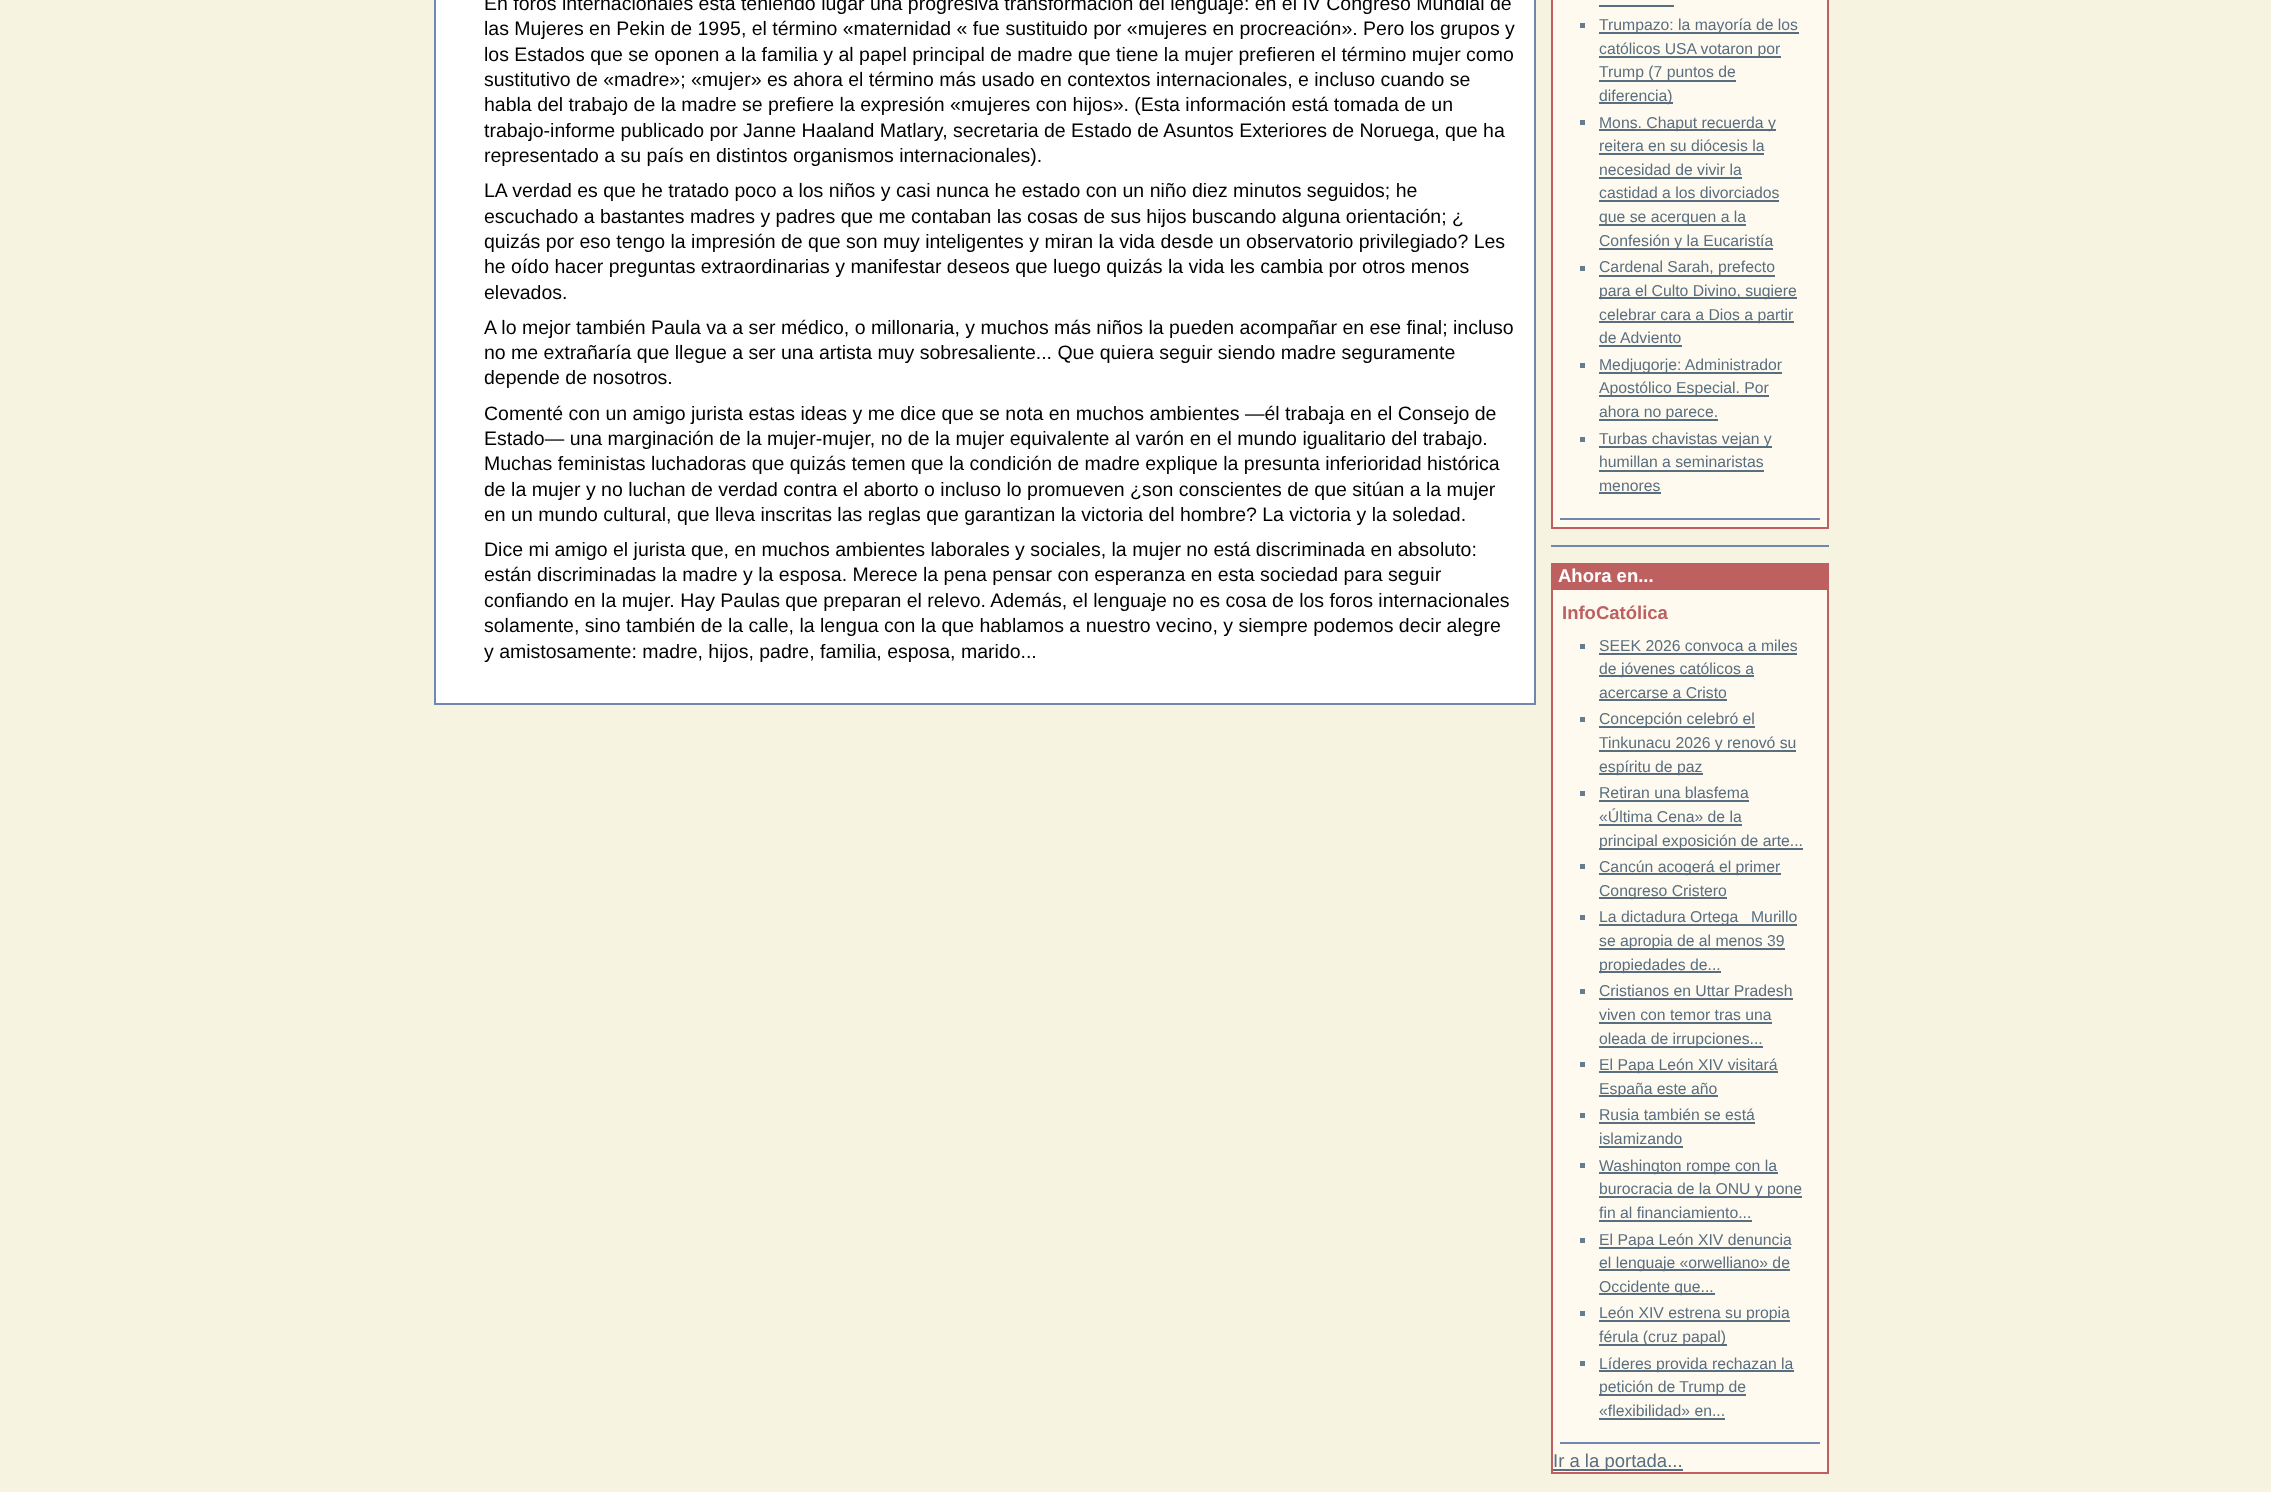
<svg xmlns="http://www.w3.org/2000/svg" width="2271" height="1492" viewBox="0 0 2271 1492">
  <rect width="100%" height="100%" fill="#f7f3e1"/>
  <rect x="435" y="-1" width="1100" height="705" fill="#ffffff" stroke="#7088b0" stroke-width="2"/>
  <text x="484" y="10" font-family="Liberation Sans" font-size="19.5" fill="#000000">En foros internacionales está teniendo lugar una progresiva transformación del lenguaje: en el IV Congreso Mundial de</text>
  <text x="484" y="35" font-family="Liberation Sans" font-size="19.5" fill="#000000">las Mujeres en Pekin de 1995, el término «maternidad « fue sustituido por «mujeres en procreación». Pero los grupos y</text>
  <text x="484" y="61" font-family="Liberation Sans" font-size="19.5" fill="#000000">los Estados que se oponen a la familia y al papel principal de madre que tiene la mujer prefieren el término mujer como</text>
  <text x="484" y="86" font-family="Liberation Sans" font-size="19.5" fill="#000000">sustitutivo de «madre»; «mujer» es ahora el término más usado en contextos internacionales, e incluso cuando se</text>
  <text x="484" y="111" font-family="Liberation Sans" font-size="19.5" fill="#000000">habla del trabajo de la madre se prefiere la expresión «mujeres con hijos». (Esta información está tomada de un</text>
  <text x="484" y="137" font-family="Liberation Sans" font-size="19.5" fill="#000000">trabajo-informe publicado por Janne Haaland Matlary, secretaria de Estado de Asuntos Exteriores de Noruega, que ha</text>
  <text x="484" y="162" font-family="Liberation Sans" font-size="19.5" fill="#000000">representado a su país en distintos organismos internacionales).</text>
  <text x="484" y="197" font-family="Liberation Sans" font-size="19.5" fill="#000000">LA verdad es que he tratado poco a los niños y casi nunca he estado con un niño diez minutos seguidos; he</text>
  <text x="484" y="223" font-family="Liberation Sans" font-size="19.5" fill="#000000">escuchado a bastantes madres y padres que me contaban las cosas de sus hijos buscando alguna orientación; ¿</text>
  <text x="484" y="248" font-family="Liberation Sans" font-size="19.5" fill="#000000">quizás por eso tengo la impresión de que son muy inteligentes y miran la vida desde un observatorio privilegiado? Les</text>
  <text x="484" y="273" font-family="Liberation Sans" font-size="19.5" fill="#000000">he oído hacer preguntas extraordinarias y manifestar deseos que luego quizás la vida les cambia por otros menos</text>
  <text x="484" y="299" font-family="Liberation Sans" font-size="19.5" fill="#000000">elevados.</text>
  <text x="484" y="334" font-family="Liberation Sans" font-size="19.5" fill="#000000">A lo mejor también Paula va a ser médico, o millonaria, y muchos más niños la pueden acompañar en ese final; incluso</text>
  <text x="484" y="359" font-family="Liberation Sans" font-size="19.5" fill="#000000">no me extrañaría que llegue a ser una artista muy sobresaliente... Que quiera seguir siendo madre seguramente</text>
  <text x="484" y="384" font-family="Liberation Sans" font-size="19.5" fill="#000000">depende de nosotros.</text>
  <text x="484" y="420" font-family="Liberation Sans" font-size="19.5" fill="#000000">Comenté con un amigo jurista estas ideas y me dice que se nota en muchos ambientes —él trabaja en el Consejo de</text>
  <text x="484" y="445" font-family="Liberation Sans" font-size="19.5" fill="#000000">Estado— una marginación de la mujer-mujer, no de la mujer equivalente al varón en el mundo igualitario del trabajo.</text>
  <text x="484" y="470" font-family="Liberation Sans" font-size="19.5" fill="#000000">Muchas feministas luchadoras que quizás temen que la condición de madre explique la presunta inferioridad histórica</text>
  <text x="484" y="496" font-family="Liberation Sans" font-size="19.5" fill="#000000">de la mujer y no luchan de verdad contra el aborto o incluso lo promueven ¿son conscientes de que sitúan a la mujer</text>
  <text x="484" y="521" font-family="Liberation Sans" font-size="19.5" fill="#000000">en un mundo cultural, que lleva inscritas las reglas que garantizan la victoria del hombre? La victoria y la soledad.</text>
  <text x="484" y="556" font-family="Liberation Sans" font-size="19.5" fill="#000000">Dice mi amigo el jurista que, en muchos ambientes laborales y sociales, la mujer no está discriminada en absoluto:</text>
  <text x="484" y="581" font-family="Liberation Sans" font-size="19.5" fill="#000000">están discriminadas la madre y la esposa. Merece la pena pensar con esperanza en esta sociedad para seguir</text>
  <text x="484" y="607" font-family="Liberation Sans" font-size="19.5" fill="#000000">confiando en la mujer. Hay Paulas que preparan el relevo. Además, el lenguaje no es cosa de los foros internacionales</text>
  <text x="484" y="632" font-family="Liberation Sans" font-size="19.5" fill="#000000">solamente, sino también de la calle, la lengua con la que hablamos a nuestro vecino, y siempre podemos decir alegre</text>
  <text x="484" y="658" font-family="Liberation Sans" font-size="19.5" fill="#000000">y amistosamente: madre, hijos, padre, familia, esposa, marido...</text>
  <rect x="1553" y="0" width="274" height="527" fill="#fffaf0"/>
  <rect x="1827" y="0" width="2" height="528" fill="#bf6060"/>
  <rect x="1551" y="527" width="278" height="2" fill="#bf6060"/>
  <rect x="1551" y="0" width="2" height="528" fill="#bf6060"/>
  <rect x="1560" y="518" width="260" height="2" fill="#7088b0"/>
  <rect x="1599" y="5" width="75" height="2" fill="#596f80"/>
  <rect x="1580" y="23" width="5" height="5" fill="#647d8f"/>
  <rect x="1599" y="32" width="200" height="2" fill="#596f80"/>
  <text x="1599" y="30" font-family="Liberation Sans" font-size="15.75" fill="#596f80">Trumpazo: la mayoría de los</text>
  <rect x="1599" y="56" width="182" height="2" fill="#596f80"/>
  <text x="1599" y="54" font-family="Liberation Sans" font-size="15.75" fill="#596f80">católicos USA votaron por</text>
  <rect x="1599" y="80" width="137" height="2" fill="#596f80"/>
  <text x="1599" y="77" font-family="Liberation Sans" font-size="15.75" fill="#596f80">Trump (7 puntos de</text>
  <rect x="1599" y="102" width="74" height="2" fill="#596f80"/>
  <text x="1599" y="101" font-family="Liberation Sans" font-size="15.75" fill="#596f80">diferencia)</text>
  <rect x="1580" y="120" width="5" height="5" fill="#647d8f"/>
  <rect x="1599" y="129" width="177" height="2" fill="#596f80"/>
  <text x="1599" y="128" font-family="Liberation Sans" font-size="15.75" fill="#596f80">Mons. Chaput recuerda y</text>
  <text x="1599" y="151" font-family="Liberation Sans" font-size="15.75" fill="#596f80">reitera en su diócesis la</text>
  <rect x="1599" y="153" width="165" height="2" fill="#596f80"/>
  <text x="1599" y="175" font-family="Liberation Sans" font-size="15.75" fill="#596f80">necesidad de vivir la</text>
  <rect x="1599" y="177" width="143" height="2" fill="#596f80"/>
  <text x="1599" y="198" font-family="Liberation Sans" font-size="15.75" fill="#596f80">castidad a los divorciados</text>
  <rect x="1599" y="200" width="180" height="2" fill="#596f80"/>
  <rect x="1599" y="224" width="147" height="2" fill="#596f80"/>
  <text x="1599" y="222" font-family="Liberation Sans" font-size="15.75" fill="#596f80">que se acerquen a la</text>
  <rect x="1599" y="248" width="174" height="2" fill="#596f80"/>
  <text x="1599" y="246" font-family="Liberation Sans" font-size="15.75" fill="#596f80">Confesión y la Eucaristía</text>
  <rect x="1580" y="266" width="5" height="5" fill="#647d8f"/>
  <rect x="1599" y="275" width="176" height="2" fill="#596f80"/>
  <text x="1599" y="272" font-family="Liberation Sans" font-size="15.75" fill="#596f80">Cardenal Sarah, prefecto</text>
  <rect x="1599" y="297" width="198" height="2" fill="#596f80"/>
  <text x="1599" y="296" font-family="Liberation Sans" font-size="15.75" fill="#596f80">para el Culto Divino, sugiere</text>
  <rect x="1599" y="321" width="195" height="2" fill="#596f80"/>
  <text x="1599" y="320" font-family="Liberation Sans" font-size="15.75" fill="#596f80">celebrar cara a Dios a partir</text>
  <text x="1599" y="343" font-family="Liberation Sans" font-size="15.75" fill="#596f80">de Adviento</text>
  <rect x="1599" y="345" width="83" height="2" fill="#596f80"/>
  <rect x="1580" y="363" width="5" height="5" fill="#647d8f"/>
  <rect x="1599" y="372" width="183" height="2" fill="#596f80"/>
  <text x="1599" y="370" font-family="Liberation Sans" font-size="15.75" fill="#596f80">Medjugorje: Administrador</text>
  <rect x="1599" y="395" width="170" height="2" fill="#596f80"/>
  <text x="1599" y="393" font-family="Liberation Sans" font-size="15.75" fill="#596f80">Apostólico Especial. Por</text>
  <rect x="1599" y="419" width="119" height="2" fill="#596f80"/>
  <text x="1599" y="417" font-family="Liberation Sans" font-size="15.75" fill="#596f80">ahora no parece.</text>
  <rect x="1580" y="437" width="5" height="5" fill="#647d8f"/>
  <rect x="1599" y="446" width="173" height="2" fill="#596f80"/>
  <text x="1599" y="444" font-family="Liberation Sans" font-size="15.75" fill="#596f80">Turbas chavistas vejan y</text>
  <text x="1599" y="467" font-family="Liberation Sans" font-size="15.75" fill="#596f80">humillan a seminaristas</text>
  <rect x="1599" y="470" width="165" height="2" fill="#596f80"/>
  <text x="1599" y="491" font-family="Liberation Sans" font-size="15.75" fill="#596f80">menores</text>
  <rect x="1599" y="492" width="62" height="2" fill="#596f80"/>
  <rect x="1551" y="545" width="278" height="2" fill="#7088b0"/>
  <rect x="1553" y="590" width="274" height="882" fill="#fffaf0"/>
  <rect x="1827" y="563" width="2" height="910" fill="#bf6060"/>
  <rect x="1551" y="1472" width="278" height="2" fill="#bf6060"/>
  <rect x="1551" y="563" width="2" height="910" fill="#bf6060"/>
  <rect x="1553" y="563" width="274" height="27" fill="#bf6060"/>
  <text x="1558" y="582" font-family="Liberation Sans" font-size="18.5" font-weight="bold" fill="#ffffff">Ahora en...</text>
  <text x="1562" y="619" font-family="Liberation Sans" font-size="18.5" font-weight="bold" fill="#bf6060">InfoCatólica</text>
  <rect x="1560" y="1442" width="260" height="2" fill="#7088b0"/>
  <rect x="1580" y="644" width="5" height="5" fill="#647d8f"/>
  <text x="1599" y="651" font-family="Liberation Sans" font-size="15.75" fill="#596f80">SEEK 2026 convoca a miles</text>
  <rect x="1599" y="653" width="198" height="2" fill="#596f80"/>
  <rect x="1599" y="675" width="155" height="2" fill="#596f80"/>
  <text x="1599" y="674" font-family="Liberation Sans" font-size="15.75" fill="#596f80">de jóvenes católicos a</text>
  <text x="1599" y="698" font-family="Liberation Sans" font-size="15.75" fill="#596f80">acercarse a Cristo</text>
  <rect x="1599" y="699" width="128" height="2" fill="#596f80"/>
  <rect x="1580" y="717" width="5" height="5" fill="#647d8f"/>
  <rect x="1599" y="726" width="156" height="2" fill="#596f80"/>
  <text x="1599" y="724" font-family="Liberation Sans" font-size="15.75" fill="#596f80">Concepción celebró el</text>
  <rect x="1599" y="750" width="197" height="2" fill="#596f80"/>
  <text x="1599" y="748" font-family="Liberation Sans" font-size="15.75" fill="#596f80">Tinkunacu 2026 y renovó su</text>
  <rect x="1599" y="773" width="104" height="2" fill="#596f80"/>
  <text x="1599" y="772" font-family="Liberation Sans" font-size="15.75" fill="#596f80">espíritu de paz</text>
  <rect x="1580" y="791" width="5" height="5" fill="#647d8f"/>
  <text x="1599" y="798" font-family="Liberation Sans" font-size="15.75" fill="#596f80">Retiran una blasfema</text>
  <rect x="1599" y="800" width="150" height="2" fill="#596f80"/>
  <text x="1599" y="822" font-family="Liberation Sans" font-size="15.75" fill="#596f80">«Última Cena» de la</text>
  <rect x="1599" y="824" width="143" height="2" fill="#596f80"/>
  <rect x="1599" y="848" width="204" height="2" fill="#596f80"/>
  <text x="1599" y="846" font-family="Liberation Sans" font-size="15.75" fill="#596f80">principal exposición de arte...</text>
  <rect x="1580" y="864" width="5" height="5" fill="#647d8f"/>
  <rect x="1599" y="873" width="182" height="2" fill="#596f80"/>
  <text x="1599" y="872" font-family="Liberation Sans" font-size="15.75" fill="#596f80">Cancún acogerá el primer</text>
  <rect x="1599" y="897" width="128" height="2" fill="#596f80"/>
  <text x="1599" y="896" font-family="Liberation Sans" font-size="15.75" fill="#596f80">Congreso Cristero</text>
  <rect x="1580" y="915" width="5" height="5" fill="#647d8f"/>
  <rect x="1599" y="924" width="198" height="2" fill="#596f80"/>
  <text x="1599" y="922" font-family="Liberation Sans" font-size="15.75" fill="#596f80">La dictadura Ortega</text>
  <text x="1751" y="922" font-family="Liberation Sans" font-size="15.75" fill="#596f80">Murillo</text>
  <rect x="1599" y="948" width="186" height="2" fill="#596f80"/>
  <text x="1599" y="946" font-family="Liberation Sans" font-size="15.75" fill="#596f80">se apropia de al menos 39</text>
  <rect x="1599" y="971" width="122" height="2" fill="#596f80"/>
  <text x="1599" y="970" font-family="Liberation Sans" font-size="15.75" fill="#596f80">propiedades de...</text>
  <rect x="1580" y="989" width="5" height="5" fill="#647d8f"/>
  <text x="1599" y="996" font-family="Liberation Sans" font-size="15.75" fill="#596f80">Cristianos en Uttar Pradesh</text>
  <rect x="1599" y="998" width="194" height="2" fill="#596f80"/>
  <text x="1599" y="1020" font-family="Liberation Sans" font-size="15.75" fill="#596f80">viven con temor tras una</text>
  <rect x="1599" y="1022" width="173" height="2" fill="#596f80"/>
  <rect x="1599" y="1046" width="164" height="2" fill="#596f80"/>
  <text x="1599" y="1044" font-family="Liberation Sans" font-size="15.75" fill="#596f80">oleada de irrupciones...</text>
  <rect x="1580" y="1062" width="5" height="5" fill="#647d8f"/>
  <rect x="1599" y="1071" width="179" height="2" fill="#596f80"/>
  <text x="1599" y="1070" font-family="Liberation Sans" font-size="15.75" fill="#596f80">El Papa León XIV visitará</text>
  <rect x="1599" y="1095" width="119" height="2" fill="#596f80"/>
  <text x="1599" y="1094" font-family="Liberation Sans" font-size="15.75" fill="#596f80">España este año</text>
  <rect x="1580" y="1113" width="5" height="5" fill="#647d8f"/>
  <text x="1599" y="1120" font-family="Liberation Sans" font-size="15.75" fill="#596f80">Rusia también se está</text>
  <rect x="1599" y="1122" width="156" height="2" fill="#596f80"/>
  <text x="1599" y="1144" font-family="Liberation Sans" font-size="15.75" fill="#596f80">islamizando</text>
  <rect x="1599" y="1146" width="84" height="2" fill="#596f80"/>
  <rect x="1580" y="1163" width="5" height="5" fill="#647d8f"/>
  <rect x="1599" y="1172" width="179" height="2" fill="#596f80"/>
  <text x="1599" y="1171" font-family="Liberation Sans" font-size="15.75" fill="#596f80">Washington rompe con la</text>
  <rect x="1599" y="1196" width="203" height="2" fill="#596f80"/>
  <text x="1599" y="1194" font-family="Liberation Sans" font-size="15.75" fill="#596f80">burocracia de la ONU y pone</text>
  <text x="1599" y="1218" font-family="Liberation Sans" font-size="15.75" fill="#596f80">fin al financiamiento...</text>
  <rect x="1599" y="1220" width="153" height="2" fill="#596f80"/>
  <rect x="1580" y="1238" width="5" height="5" fill="#647d8f"/>
  <rect x="1599" y="1247" width="192" height="2" fill="#596f80"/>
  <text x="1599" y="1245" font-family="Liberation Sans" font-size="15.75" fill="#596f80">El Papa León XIV denuncia</text>
  <rect x="1599" y="1269" width="191" height="2" fill="#596f80"/>
  <text x="1599" y="1268" font-family="Liberation Sans" font-size="15.75" fill="#596f80">el lenguaje «orwelliano» de</text>
  <rect x="1599" y="1293" width="116" height="2" fill="#596f80"/>
  <text x="1599" y="1292" font-family="Liberation Sans" font-size="15.75" fill="#596f80">Occidente que...</text>
  <rect x="1580" y="1311" width="5" height="5" fill="#647d8f"/>
  <rect x="1599" y="1320" width="191" height="2" fill="#596f80"/>
  <text x="1599" y="1318" font-family="Liberation Sans" font-size="15.75" fill="#596f80">León XIV estrena su propia</text>
  <rect x="1599" y="1344" width="128" height="2" fill="#596f80"/>
  <text x="1599" y="1342" font-family="Liberation Sans" font-size="15.75" fill="#596f80">férula (cruz papal)</text>
  <rect x="1580" y="1361" width="5" height="5" fill="#647d8f"/>
  <rect x="1599" y="1370" width="195" height="2" fill="#596f80"/>
  <text x="1599" y="1369" font-family="Liberation Sans" font-size="15.75" fill="#596f80">Líderes provida rechazan la</text>
  <rect x="1599" y="1394" width="147" height="2" fill="#596f80"/>
  <text x="1599" y="1392" font-family="Liberation Sans" font-size="15.75" fill="#596f80">petición de Trump de</text>
  <text x="1599" y="1416" font-family="Liberation Sans" font-size="15.75" fill="#596f80">«flexibilidad» en...</text>
  <rect x="1599" y="1418" width="126" height="2" fill="#596f80"/>
  <rect x="1553" y="1469" width="130" height="2" fill="#596f80"/>
  <text x="1553" y="1467" font-family="Liberation Sans" font-size="18.5" fill="#596f80">Ir a la portada...</text>
</svg>
